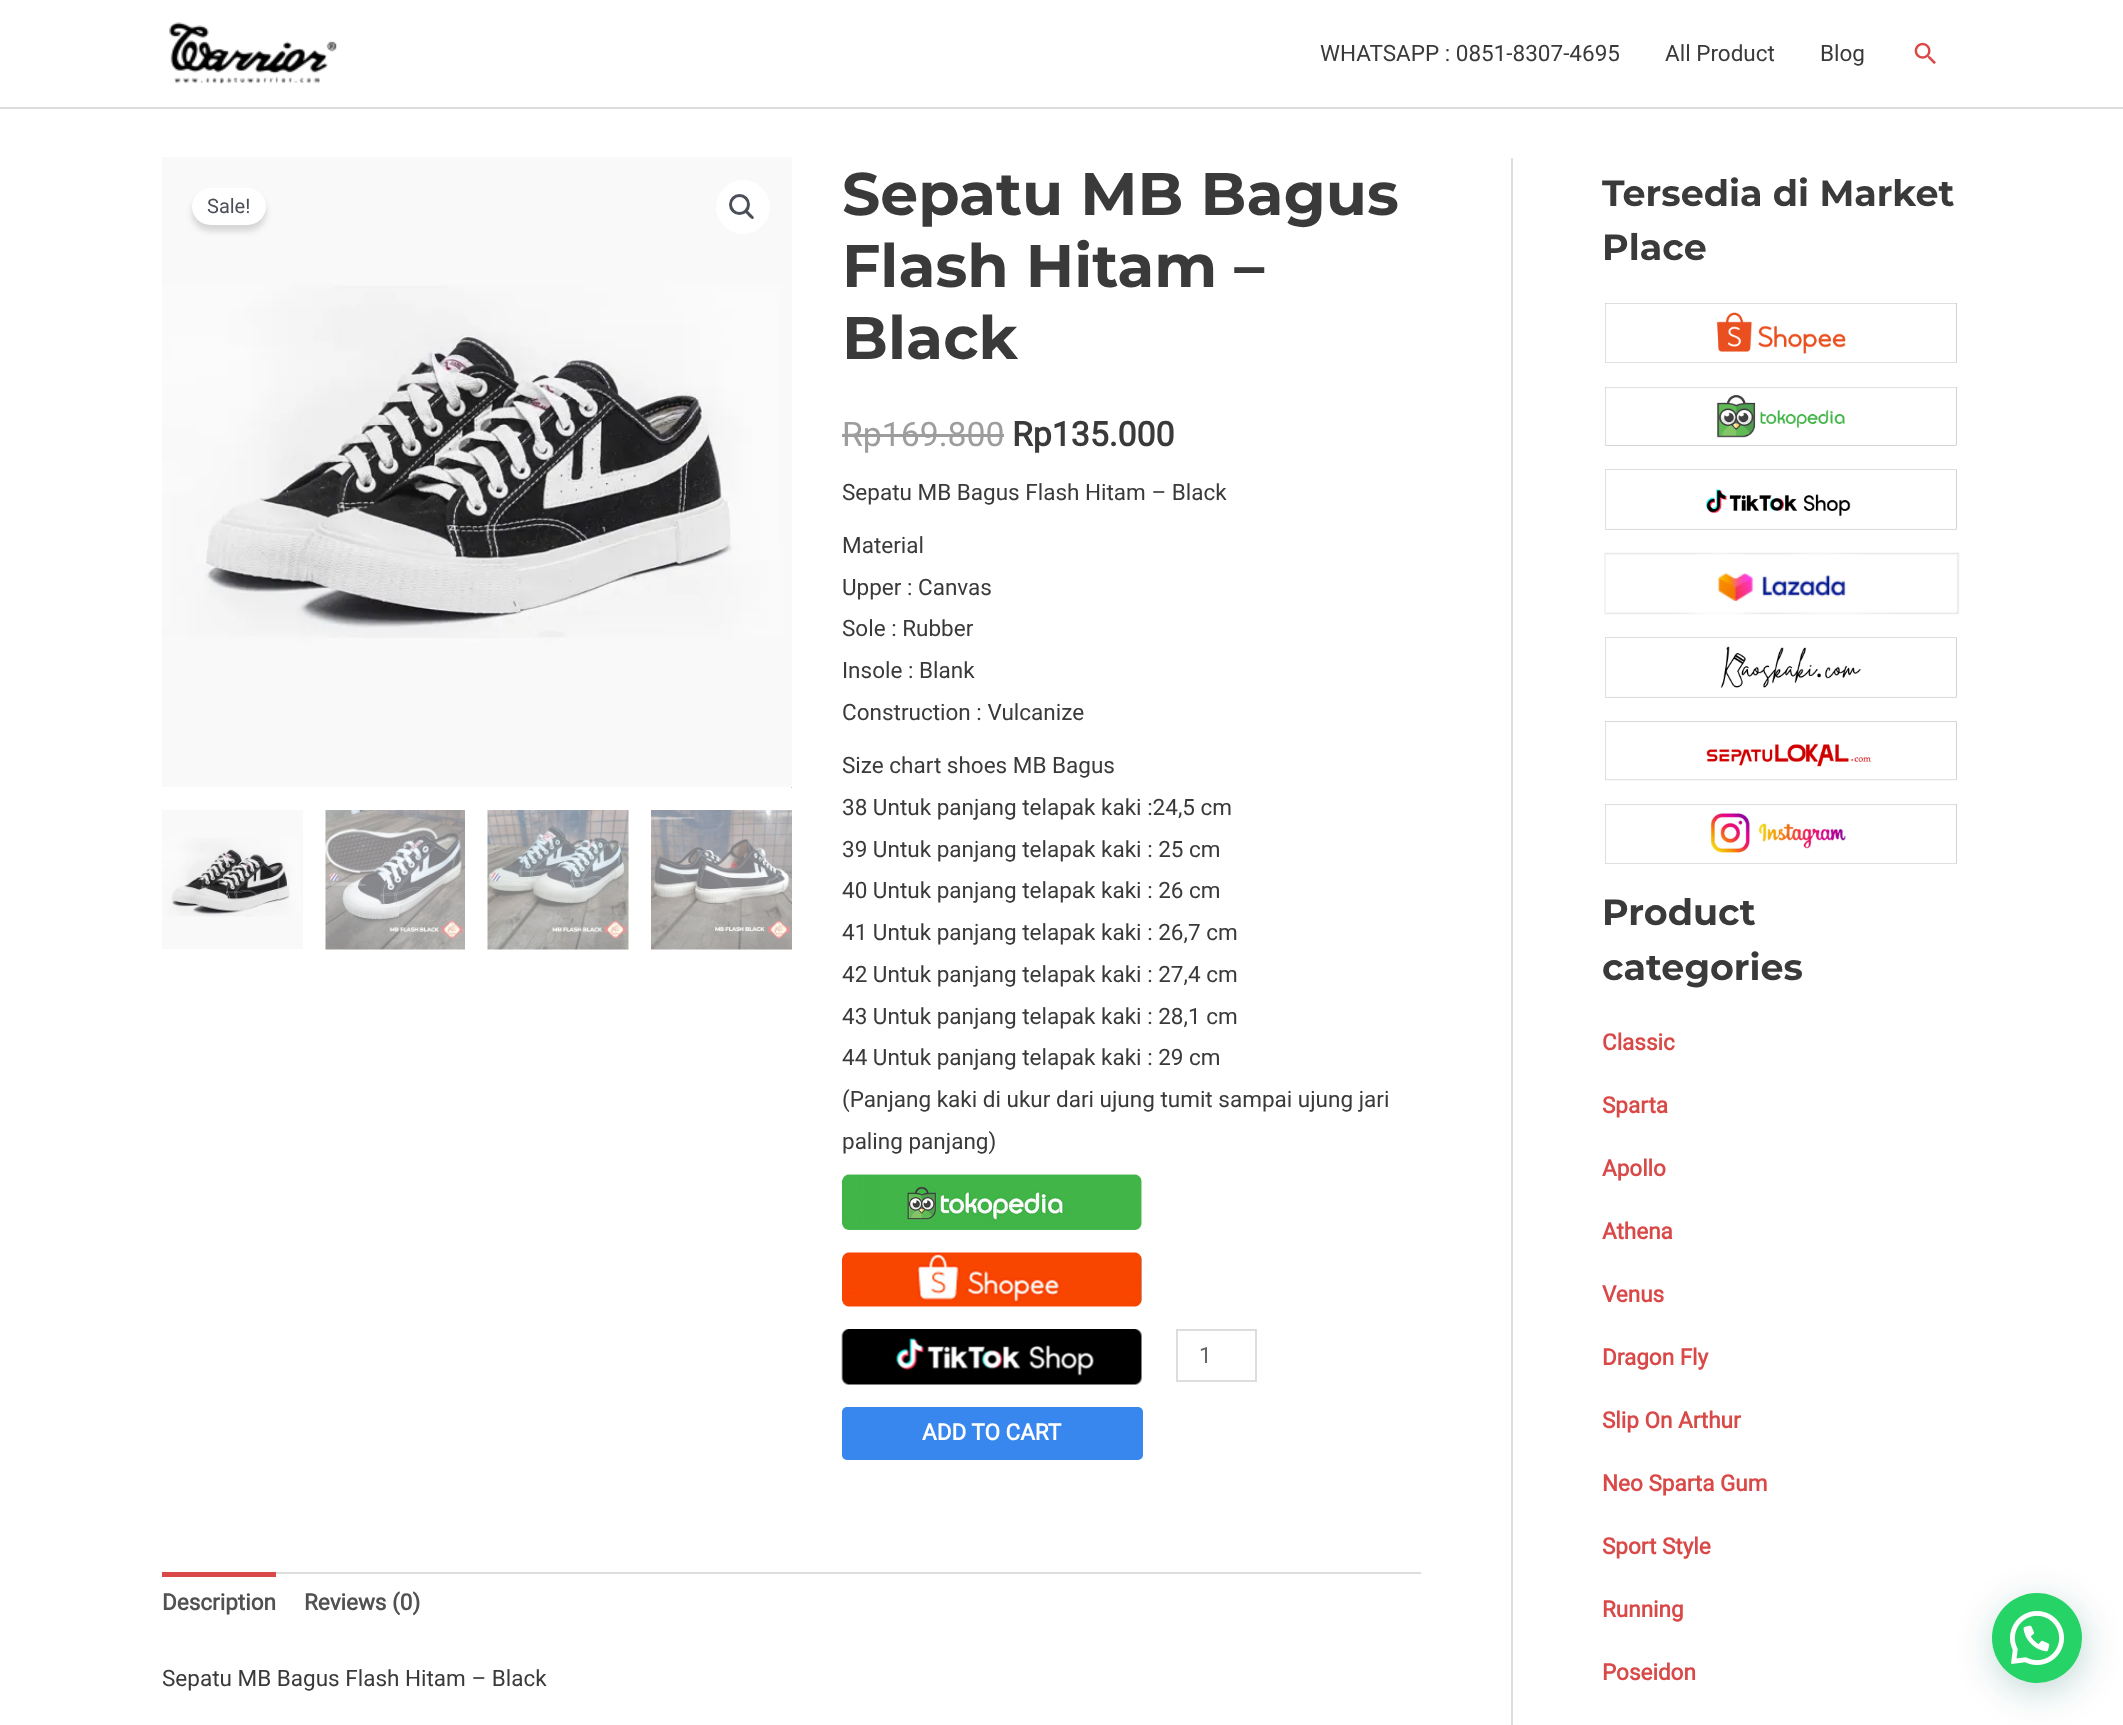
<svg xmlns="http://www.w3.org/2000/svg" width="2123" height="1725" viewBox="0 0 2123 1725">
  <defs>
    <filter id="blur1" x="-50%" y="-200%" width="200%" height="500%"><feGaussianBlur stdDeviation="3"/></filter>
    <filter id="blur2" x="-50%" y="-200%" width="200%" height="500%"><feGaussianBlur stdDeviation="18"/></filter>
  </defs>
  <rect width="100%" height="100%" fill="#ffffff"/>
  <rect x="0" y="107" width="2123" height="2" fill="#dddddd"/>
  <image x="169" y="22" width="168" height="62" href="img1.png"/>
  <text x="1320" y="61" font-family="Roboto" font-size="22.5" fill="#3a3a3a">WHATSAPP : 0851-8307-4695</text>
  <text x="1665" y="61" font-family="Roboto" font-size="22.5" fill="#3a3a3a">All Product</text>
  <text x="1820" y="61" font-family="Roboto" font-size="22.5" fill="#3a3a3a">Blog</text>
  <image x="1914" y="42" width="22" height="22" href="img2.png"/>
  <rect x="1511" y="158" width="2" height="1567" fill="#dddddd"/>
  <image x="162" y="157" width="630" height="630" href="img3.png"/>
  <image x="791" y="787" width="1" height="1" href="img4.png"/>
  <circle cx="743" cy="207" r="27" fill="#ffffff"/>
  <circle cx="739.5" cy="204.5" r="9" fill="none" stroke="#4b4f58" stroke-width="3"/>
  <path d="M745 210.5C746.5 208.5 749.5 212.5 750.5 213.5C751 214.5 755 217 753.5 218.5C752 220.5 749 216.5 748 215.5C747.5 214.5 743.5 212 745 210.5Z" fill="#4b4f58"/>
  <image x="162" y="810" width="141" height="139" href="img5.png"/>
  <image x="325" y="810" width="140" height="140" href="img6.png"/>
  <image x="487" y="810" width="142" height="140" href="img7.png"/>
  <image x="651" y="810" width="141" height="140" href="img8.png"/>
  <text x="842" y="215" font-family="Montserrat" font-size="60" font-weight="100" fill="#3a3a3a">Sepatu MB Bagus</text>
  <text x="842" y="287" font-family="Montserrat" font-size="60" font-weight="100" fill="#3a3a3a">Flash Hitam –</text>
  <text x="842" y="359" font-family="Montserrat" font-size="60" font-weight="100" fill="#3a3a3a">Black</text>
  <text x="842" y="446" font-family="Roboto" font-size="33.75" fill="#9d9d9d">Rp169.800</text>
  <rect x="842" y="434" width="162" height="3" fill="#9d9d9d"/>
  <text x="1012" y="446" font-family="Roboto" font-size="33.75" font-weight="bold" fill="#3a3a3a">Rp135.000</text>
  <text x="842" y="500" font-family="Roboto" font-size="22.5" fill="#3a3a3a">Sepatu MB Bagus Flash Hitam – Black</text>
  <text x="842" y="553" font-family="Roboto" font-size="22.5" fill="#3a3a3a">Material</text>
  <text x="842" y="595" font-family="Roboto" font-size="22.5" fill="#3a3a3a">Upper : Canvas</text>
  <text x="842" y="636" font-family="Roboto" font-size="22.5" fill="#3a3a3a">Sole : Rubber</text>
  <text x="842" y="678" font-family="Roboto" font-size="22.5" fill="#3a3a3a">Insole : Blank</text>
  <text x="842" y="720" font-family="Roboto" font-size="22.5" fill="#3a3a3a">Construction : Vulcanize</text>
  <text x="842" y="773" font-family="Roboto" font-size="22.5" fill="#3a3a3a">Size chart shoes MB Bagus</text>
  <text x="842" y="815" font-family="Roboto" font-size="22.5" fill="#3a3a3a">38 Untuk panjang telapak kaki :24,5 cm</text>
  <text x="842" y="857" font-family="Roboto" font-size="22.5" fill="#3a3a3a">39 Untuk panjang telapak kaki : 25 cm</text>
  <text x="842" y="898" font-family="Roboto" font-size="22.5" fill="#3a3a3a">40 Untuk panjang telapak kaki : 26 cm</text>
  <text x="842" y="940" font-family="Roboto" font-size="22.5" fill="#3a3a3a">41 Untuk panjang telapak kaki : 26,7 cm</text>
  <text x="842" y="982" font-family="Roboto" font-size="22.5" fill="#3a3a3a">42 Untuk panjang telapak kaki : 27,4 cm</text>
  <text x="842" y="1024" font-family="Roboto" font-size="22.5" fill="#3a3a3a">43 Untuk panjang telapak kaki : 28,1 cm</text>
  <text x="842" y="1065" font-family="Roboto" font-size="22.5" fill="#3a3a3a">44 Untuk panjang telapak kaki : 29 cm</text>
  <text x="842" y="1107" font-family="Roboto" font-size="22.5" fill="#3a3a3a">(Panjang kaki di ukur dari ujung tumit sampai ujung jari</text>
  <text x="842" y="1149" font-family="Roboto" font-size="22.5" fill="#3a3a3a">paling panjang)</text>
  <image x="842" y="1174" width="300" height="56" href="img9.png"/>
  <image x="842" y="1252" width="300" height="55" href="img10.png"/>
  <image x="841" y="1329" width="301" height="56" href="img11.png"/>
  <rect x="1177" y="1330" width="79" height="51" fill="none" stroke="#dddddd" stroke-width="2"/>
  <text x="1199" y="1363" font-family="Roboto" font-size="22.5" fill="#666666">1</text>
  <rect x="842" y="1407" width="301" height="53" rx="5" fill="#3787ef"/>
  <text x="922" y="1440" font-family="Roboto" font-size="22.5" font-weight="bold" fill="#ffffff">ADD TO CART</text>
  <rect x="192" y="194" width="74" height="37" rx="18.5" fill="#000000" fill-opacity="0.15" filter="url(#blur1)"/>
  <rect x="192" y="188" width="74" height="37" rx="18.5" fill="#ffffff"/>
  <text x="207" y="213" font-family="Roboto" font-size="20" fill="#4b4f58">Sale!</text>
  <rect x="276" y="1572" width="1145" height="2" fill="#dddddd"/>
  <rect x="162" y="1572" width="114" height="5" fill="#d94948"/>
  <text x="162" y="1610" font-family="Roboto" font-size="22.5" font-weight="bold" fill="#515151">Description</text>
  <text x="304" y="1610" font-family="Roboto" font-size="22.5" font-weight="bold" fill="#515151">Reviews (0)</text>
  <text x="162" y="1686" font-family="Roboto" font-size="22.5" fill="#3a3a3a">Sepatu MB Bagus Flash Hitam – Black</text>
  <text x="1602" y="206" font-family="Montserrat" font-size="36.5" font-weight="100" fill="#3a3a3a">Tersedia di Market</text>
  <text x="1602" y="260" font-family="Montserrat" font-size="36.5" font-weight="100" fill="#3a3a3a">Place</text>
  <image x="1605" y="303" width="352" height="60" href="img12.png"/>
  <image x="1605" y="387" width="352" height="59" href="img13.png"/>
  <image x="1605" y="469" width="352" height="61" href="img14.png"/>
  <image x="1604" y="552" width="356" height="63" href="img15.png"/>
  <image x="1605" y="637" width="352" height="61" href="img16.png"/>
  <image x="1605" y="721" width="352" height="60" href="img17.png"/>
  <image x="1605" y="804" width="352" height="60" href="img18.png"/>
  <text x="1602" y="925" font-family="Montserrat" font-size="36.5" font-weight="100" fill="#3a3a3a">Product</text>
  <text x="1602" y="980" font-family="Montserrat" font-size="36.5" font-weight="100" fill="#3a3a3a">categories</text>
  <text x="1602" y="1050" font-family="Roboto" font-size="22.5" font-weight="bold" fill="#d94948">Classic</text>
  <text x="1602" y="1113" font-family="Roboto" font-size="22.5" font-weight="bold" fill="#d94948">Sparta</text>
  <text x="1602" y="1176" font-family="Roboto" font-size="22.5" font-weight="bold" fill="#d94948">Apollo</text>
  <text x="1602" y="1239" font-family="Roboto" font-size="22.5" font-weight="bold" fill="#d94948">Athena</text>
  <text x="1602" y="1302" font-family="Roboto" font-size="22.5" font-weight="bold" fill="#d94948">Venus</text>
  <text x="1602" y="1365" font-family="Roboto" font-size="22.5" font-weight="bold" fill="#d94948">Dragon Fly</text>
  <text x="1602" y="1428" font-family="Roboto" font-size="22.5" font-weight="bold" fill="#d94948">Slip On Arthur</text>
  <text x="1602" y="1491" font-family="Roboto" font-size="22.5" font-weight="bold" fill="#d94948">Neo Sparta Gum</text>
  <text x="1602" y="1554" font-family="Roboto" font-size="22.5" font-weight="bold" fill="#d94948">Sport Style</text>
  <text x="1602" y="1617" font-family="Roboto" font-size="22.5" font-weight="bold" fill="#d94948">Running</text>
  <text x="1602" y="1680" font-family="Roboto" font-size="22.5" font-weight="bold" fill="#d94948">Poseidon</text>
  <rect x="1994" y="1602" width="90" height="90" rx="45" fill="#075e54" fill-opacity="0.24" filter="url(#blur2)"/>
  <circle cx="2037" cy="1638" r="45" fill="#25d366"/>
  <image x="2010" y="1611" width="54" height="54" href="img19.png"/>
</svg>
